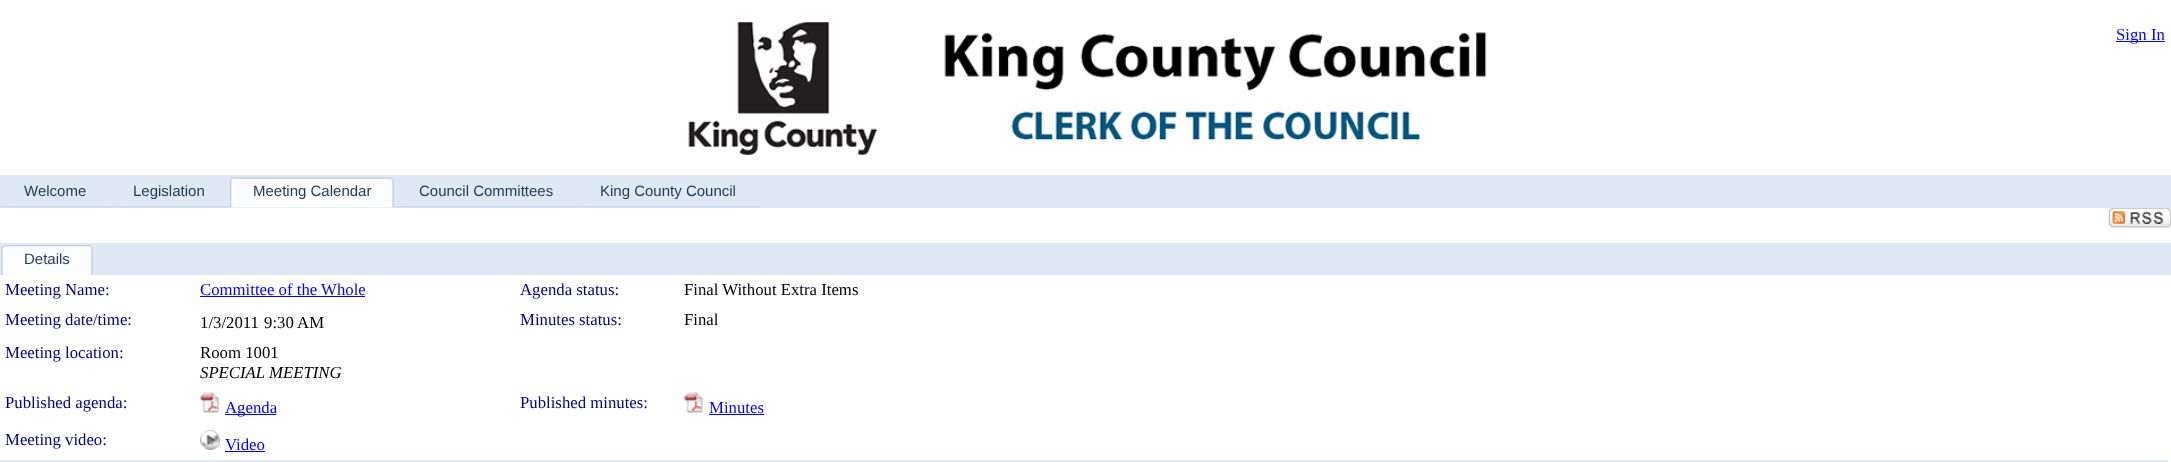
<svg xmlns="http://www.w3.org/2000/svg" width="2171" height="462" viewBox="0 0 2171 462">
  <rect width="100%" height="100%" fill="#ffffff"/>
  <image x="688" y="22" width="799" height="133" href="img1.png"/>
  <rect x="2116" y="41" width="49" height="1" fill="#0000ff"/>
  <text x="2116" y="40" font-family="Liberation Serif" font-size="16.75" fill="#0000ff">Sign In</text>
  <rect x="0" y="175" width="2171" height="33" fill="#dfe9f5"/>
  <image x="0" y="206" width="110" height="2" href="img2.png"/>
  <image x="12" y="206" width="98" height="2" href="img3.png"/>
  <text x="24" y="196" font-family="Liberation Sans" font-size="15" fill="#1e395b">Welcome</text>
  <image x="110" y="206" width="119" height="2" href="img4.png"/>
  <image x="122" y="206" width="107" height="2" href="img5.png"/>
  <text x="133" y="196" font-family="Liberation Sans" font-size="15" fill="#1e395b">Legislation</text>
  <image x="230" y="177" width="10" height="31" href="img6.png"/>
  <image x="240" y="177" width="154" height="31" href="img7.png"/>
  <text x="253" y="196" font-family="Liberation Sans" font-size="15" fill="#1e395b">Meeting Calendar</text>
  <image x="395" y="206" width="181" height="2" href="img8.png"/>
  <image x="407" y="206" width="169" height="2" href="img9.png"/>
  <text x="419" y="196" font-family="Liberation Sans" font-size="15" fill="#1e395b">Council Committees</text>
  <image x="576" y="206" width="184" height="2" href="img10.png"/>
  <image x="588" y="206" width="172" height="2" href="img11.png"/>
  <text x="600" y="196" font-family="Liberation Sans" font-size="15" fill="#1e395b">King County Council</text>
  <image x="2108" y="208" width="63" height="20" href="img12.png"/>
  <rect x="0" y="243" width="2171" height="32" fill="#dfe9f5"/>
  <image x="1" y="245" width="11" height="30" href="img13.png"/>
  <image x="11" y="245" width="82" height="30" href="img14.png"/>
  <text x="24" y="264" font-family="Liberation Sans" font-size="15" fill="#1e395b">Details</text>
  <text x="5" y="295" font-family="Liberation Serif" font-size="16.75" fill="#000080">Meeting Name:</text>
  <text x="200" y="295" font-family="Liberation Serif" font-size="16.75" fill="#0000ff">Committee of the Whole</text>
  <rect x="200" y="296" width="165" height="1" fill="#0000ff"/>
  <text x="520" y="295" font-family="Liberation Serif" font-size="16.75" fill="#000080">Agenda status:</text>
  <text x="684" y="295" font-family="Liberation Serif" font-size="16.75" fill="#000000">Final Without Extra Items</text>
  <text x="5" y="325" font-family="Liberation Serif" font-size="16.75" fill="#000080">Meeting date/time:</text>
  <text x="200" y="328" font-family="Liberation Serif" font-size="16.75" fill="#000000">1/3/2011</text>
  <text x="264" y="328" font-family="Liberation Serif" font-size="16.75" fill="#000000">9:30 AM</text>
  <text x="520" y="325" font-family="Liberation Serif" font-size="16.75" fill="#000080">Minutes status:</text>
  <text x="684" y="325" font-family="Liberation Serif" font-size="16.75" fill="#000000">Final</text>
  <text x="5" y="358" font-family="Liberation Serif" font-size="16.75" fill="#000080">Meeting location:</text>
  <text x="200" y="358" font-family="Liberation Serif" font-size="16.75" fill="#000000">Room 1001</text>
  <text x="200" y="378" font-family="Liberation Serif" font-size="16.75" font-style="italic" fill="#000000">SPECIAL MEETING</text>
  <text x="5" y="408" font-family="Liberation Serif" font-size="16.75" fill="#000080">Published agenda:</text>
  <image x="200" y="392" width="19" height="21" href="img15.png"/>
  <rect x="225" y="414" width="51" height="1" fill="#0000ff"/>
  <text x="225" y="413" font-family="Liberation Serif" font-size="16.75" fill="#0000ff">Agenda</text>
  <text x="520" y="408" font-family="Liberation Serif" font-size="16.75" fill="#000080">Published minutes:</text>
  <image x="683" y="392" width="20" height="21" href="img16.png"/>
  <text x="709" y="413" font-family="Liberation Serif" font-size="16.75" fill="#0000ff">Minutes</text>
  <rect x="709" y="414" width="55" height="1" fill="#0000ff"/>
  <text x="5" y="445" font-family="Liberation Serif" font-size="16.75" fill="#000080">Meeting video:</text>
  <image x="200" y="430" width="20" height="20" href="img17.png"/>
  <text x="225" y="450" font-family="Liberation Serif" font-size="16.75" fill="#0000ff">Video</text>
  <rect x="225" y="451" width="40" height="1" fill="#0000ff"/>
  <rect x="0" y="460" width="2168" height="2" fill="#dfe9f5"/>
</svg>
